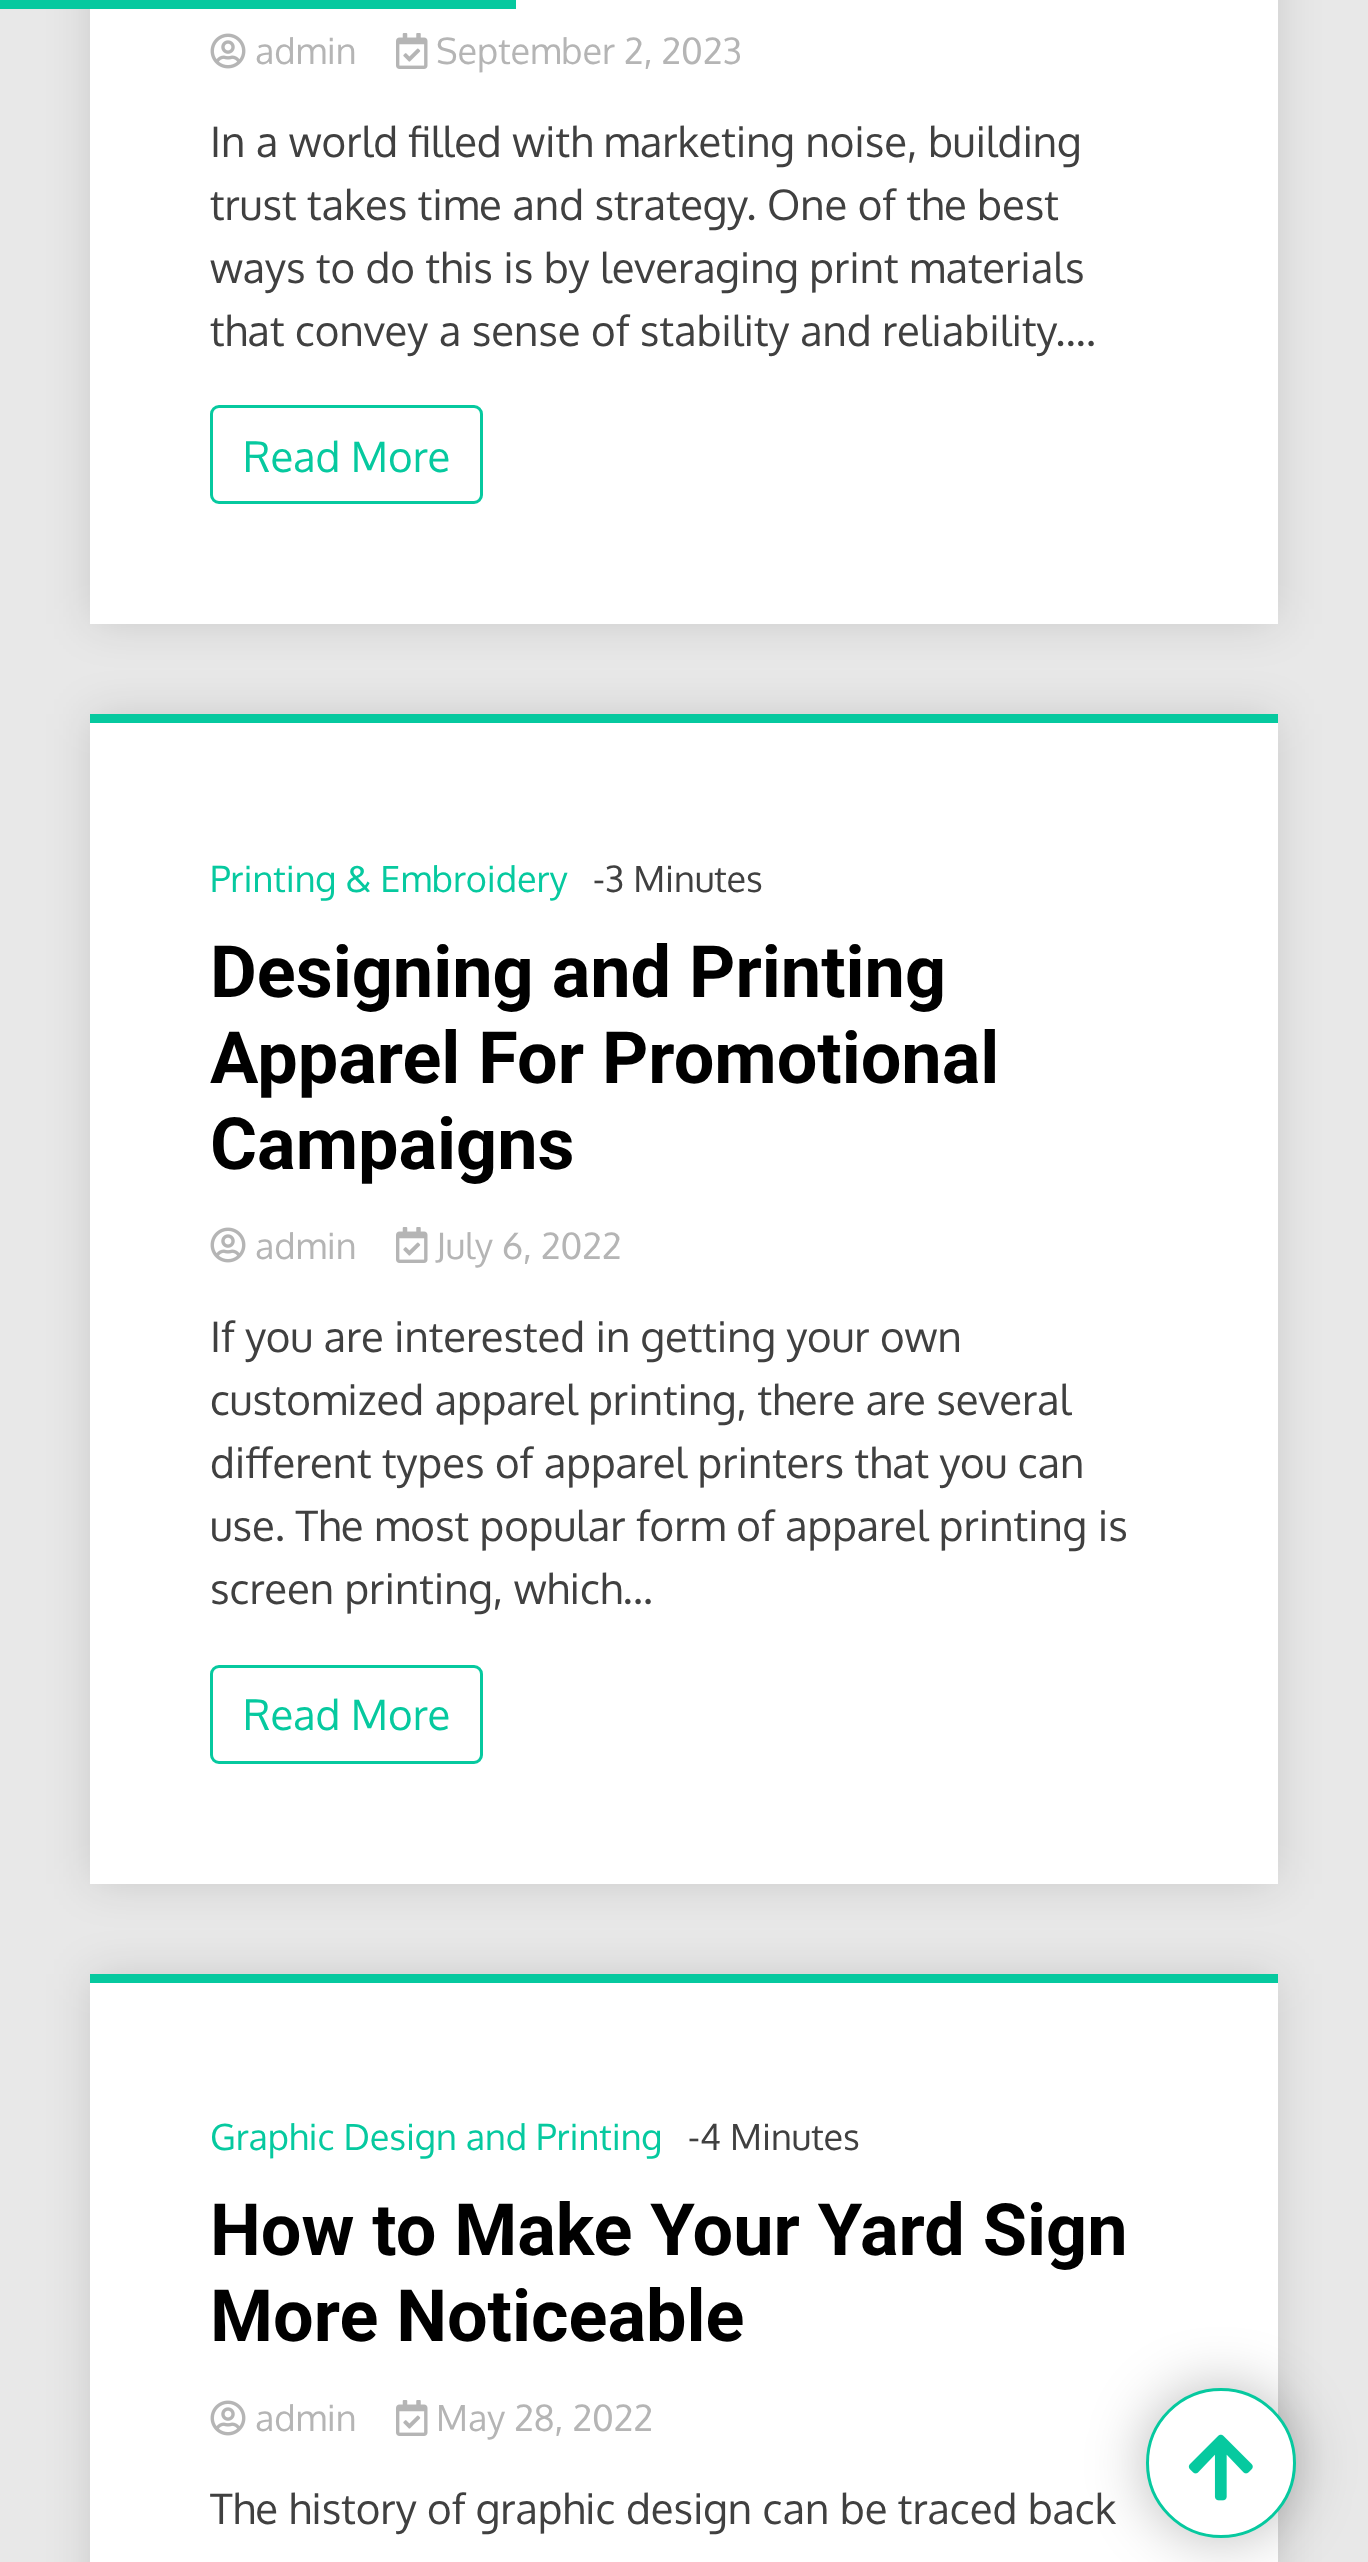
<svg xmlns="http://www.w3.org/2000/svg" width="1368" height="2562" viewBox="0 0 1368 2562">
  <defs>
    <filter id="blur1" x="-50%" y="-200%" width="200%" height="500%"><feGaussianBlur stdDeviation="22.5"/></filter>
    <filter id="blur2" x="-50%" y="-200%" width="200%" height="500%"><feGaussianBlur stdDeviation="30"/></filter>
  </defs>
  <rect width="100%" height="100%" fill="#e8e8e8"/>
  <rect x="90" y="-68" width="1188" height="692" fill="#000000" fill-opacity="0.13" filter="url(#blur1)"/>
  <rect x="90" y="0" width="1188" height="624" fill="#ffffff"/>
  <rect x="0" y="0" width="516" height="9" fill="#06c99f"/>
  <image x="210" y="33" width="36" height="36" href="img1.png"/>
  <text x="255" y="64" font-family="Oxygen" font-size="36" fill="#b5b5b5">admin</text>
  <image x="396" y="33" width="32" height="36" href="img2.png"/>
  <text x="436" y="64" font-family="Oxygen" font-size="36" fill="#b5b5b5">September 2, 2023</text>
  <text x="210" y="157" font-family="Oxygen" font-size="42" fill="#404040">In a world filled with marketing noise, building</text>
  <text x="210" y="220" font-family="Oxygen" font-size="42" fill="#404040">trust takes time and strategy. One of the best</text>
  <text x="210" y="283" font-family="Oxygen" font-size="42" fill="#404040">ways to do this is by leveraging print materials</text>
  <text x="210" y="346" font-family="Oxygen" font-size="42" fill="#404040">that convey a sense of stability and reliability....</text>
  <rect x="211.5" y="406.5" width="270" height="96" rx="7.5" fill="none" stroke="#06c99f" stroke-width="3"/>
  <text x="243" y="472" font-family="Oxygen" font-size="42" fill="#06c99f">Read More</text>
  <rect x="90" y="714" width="1188" height="1170" fill="#000000" fill-opacity="0.13" filter="url(#blur1)"/>
  <rect x="90" y="723" width="1188" height="1161" fill="#ffffff"/>
  <rect x="90" y="714" width="1188" height="9" fill="#06c99f"/>
  <text x="210" y="892" font-family="Oxygen" font-size="36" fill="#06c99f">Printing &amp; Embroidery</text>
  <text x="593" y="892" font-family="Oxygen" font-size="36" fill="#404040">-3 Minutes</text>
  <text x="210" y="997" font-family="Roboto" font-size="72" font-weight="bold" fill="#000000">Designing and Printing</text>
  <text x="210" y="1083" font-family="Roboto" font-size="72" font-weight="bold" fill="#000000">Apparel For Promotional</text>
  <text x="210" y="1169" font-family="Roboto" font-size="72" font-weight="bold" fill="#000000">Campaigns</text>
  <image x="210" y="1227" width="36" height="36" href="img1.png"/>
  <text x="255" y="1259" font-family="Oxygen" font-size="36" fill="#b5b5b5">admin</text>
  <image x="396" y="1227" width="32" height="36" href="img2.png"/>
  <text x="436" y="1259" font-family="Oxygen" font-size="36" fill="#b5b5b5">July 6, 2022</text>
  <text x="210" y="1352" font-family="Oxygen" font-size="42" fill="#404040">If you are interested in getting your own</text>
  <text x="210" y="1415" font-family="Oxygen" font-size="42" fill="#404040">customized apparel printing, there are several</text>
  <text x="210" y="1478" font-family="Oxygen" font-size="42" fill="#404040">different types of apparel printers that you can</text>
  <text x="210" y="1541" font-family="Oxygen" font-size="42" fill="#404040">use. The most popular form of apparel printing is</text>
  <text x="210" y="1604" font-family="Oxygen" font-size="42" fill="#404040">screen printing, which...</text>
  <rect x="211.5" y="1666.5" width="270" height="96" rx="7.5" fill="none" stroke="#06c99f" stroke-width="3"/>
  <text x="243" y="1730" font-family="Oxygen" font-size="42" fill="#06c99f">Read More</text>
  <rect x="90" y="1974" width="1188" height="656" fill="#000000" fill-opacity="0.13" filter="url(#blur1)"/>
  <rect x="90" y="1983" width="1188" height="579" fill="#ffffff"/>
  <rect x="90" y="1974" width="1188" height="9" fill="#06c99f"/>
  <text x="210" y="2150" font-family="Oxygen" font-size="36" fill="#06c99f">Graphic Design and Printing</text>
  <text x="688" y="2150" font-family="Oxygen" font-size="36" fill="#404040">-4 Minutes</text>
  <text x="210" y="2255" font-family="Roboto" font-size="72" font-weight="bold" fill="#000000">How to Make Your Yard Sign</text>
  <text x="210" y="2341" font-family="Roboto" font-size="72" font-weight="bold" fill="#000000">More Noticeable</text>
  <image x="210" y="2400" width="36" height="36" href="img1.png"/>
  <text x="255" y="2431" font-family="Oxygen" font-size="36" fill="#b5b5b5">admin</text>
  <image x="396" y="2400" width="32" height="36" href="img2.png"/>
  <text x="436" y="2431" font-family="Oxygen" font-size="36" fill="#b5b5b5">May 28, 2022</text>
  <text x="210" y="2524" font-family="Oxygen" font-size="42" fill="#404040">The history of graphic design can be traced back</text>
  <rect x="1146" y="2388" width="150" height="150" rx="75" fill="#000000" fill-opacity="0.28" filter="url(#blur2)"/>
  <circle cx="1221" cy="2463" r="73.5" fill="#ffffff" stroke="#06c99f" stroke-width="3"/>
  <image x="1188" y="2434" width="65" height="67" href="img3.png"/>
</svg>
